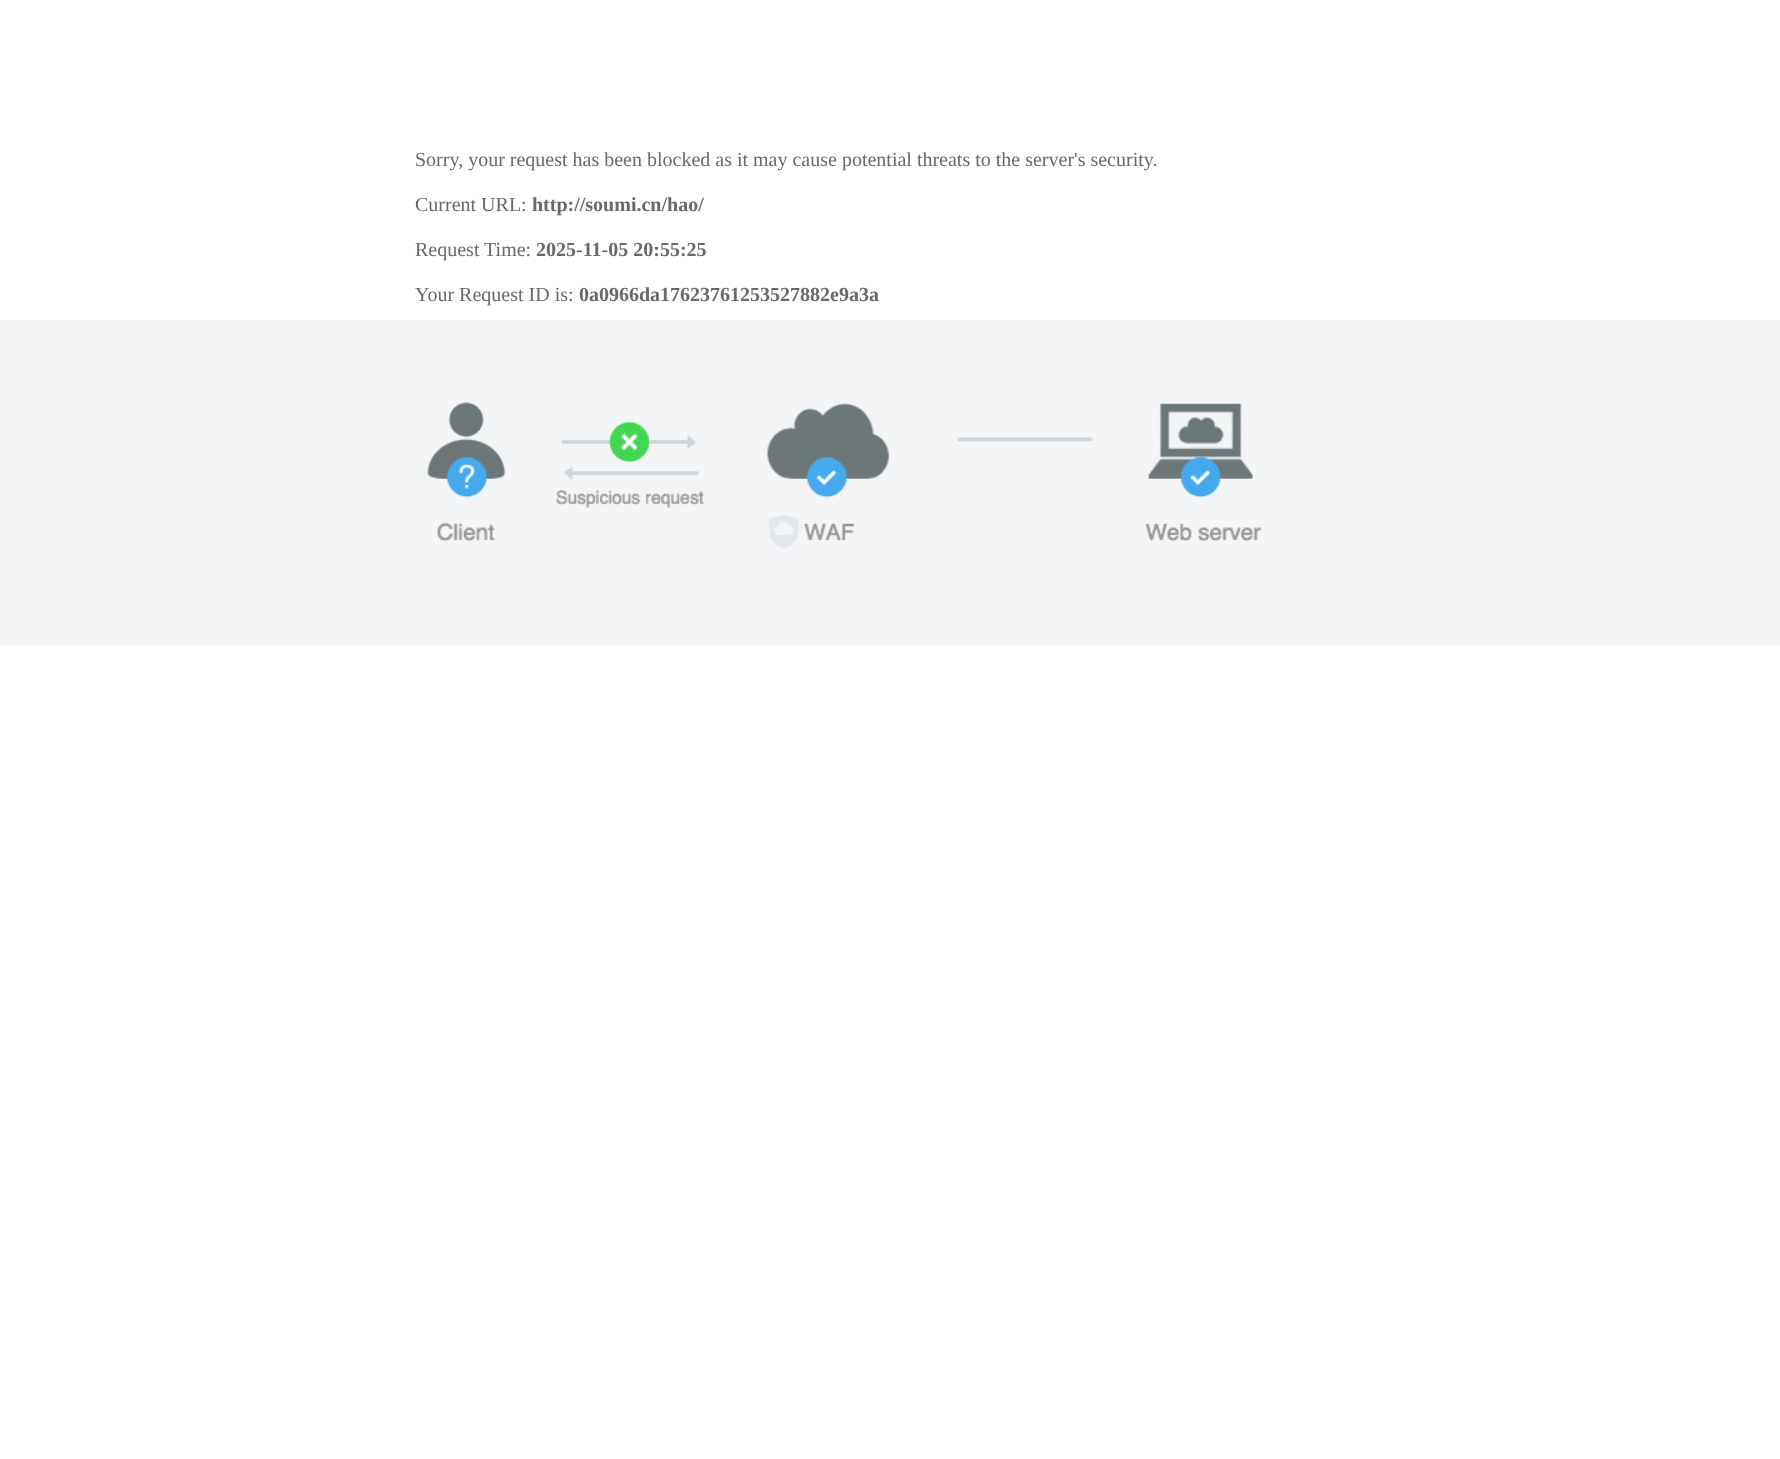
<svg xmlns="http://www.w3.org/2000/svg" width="1780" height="1459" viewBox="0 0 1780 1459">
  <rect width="100%" height="100%" fill="#ffffff"/>
  <text x="415" y="166" font-family="Liberation Serif" font-size="20" fill="#696969">Sorry, your request has been blocked as it may cause potential threats to the server's security.</text>
  <text x="415" y="211" font-family="Liberation Serif" font-size="20" fill="#696969">Current URL:</text>
  <text x="532" y="211" font-family="Liberation Serif" font-size="20" font-weight="bold" fill="#696969">http://soumi.cn/hao/</text>
  <text x="415" y="256" font-family="Liberation Serif" font-size="20" fill="#696969">Request Time:</text>
  <text x="536" y="256" font-family="Liberation Serif" font-size="20" font-weight="bold" fill="#696969">2025-11-05 20:55:25</text>
  <text x="415" y="301" font-family="Liberation Serif" font-size="20" fill="#696969">Your Request ID is:</text>
  <text x="579" y="301" font-family="Liberation Serif" font-size="20" font-weight="bold" fill="#696969">0a0966da17623761253527882e9a3a</text>
  <rect x="0" y="320" width="1780" height="325" fill="#f4f5f7"/>
  <image x="427" y="402" width="835" height="147" href="img1.png"/>
</svg>
